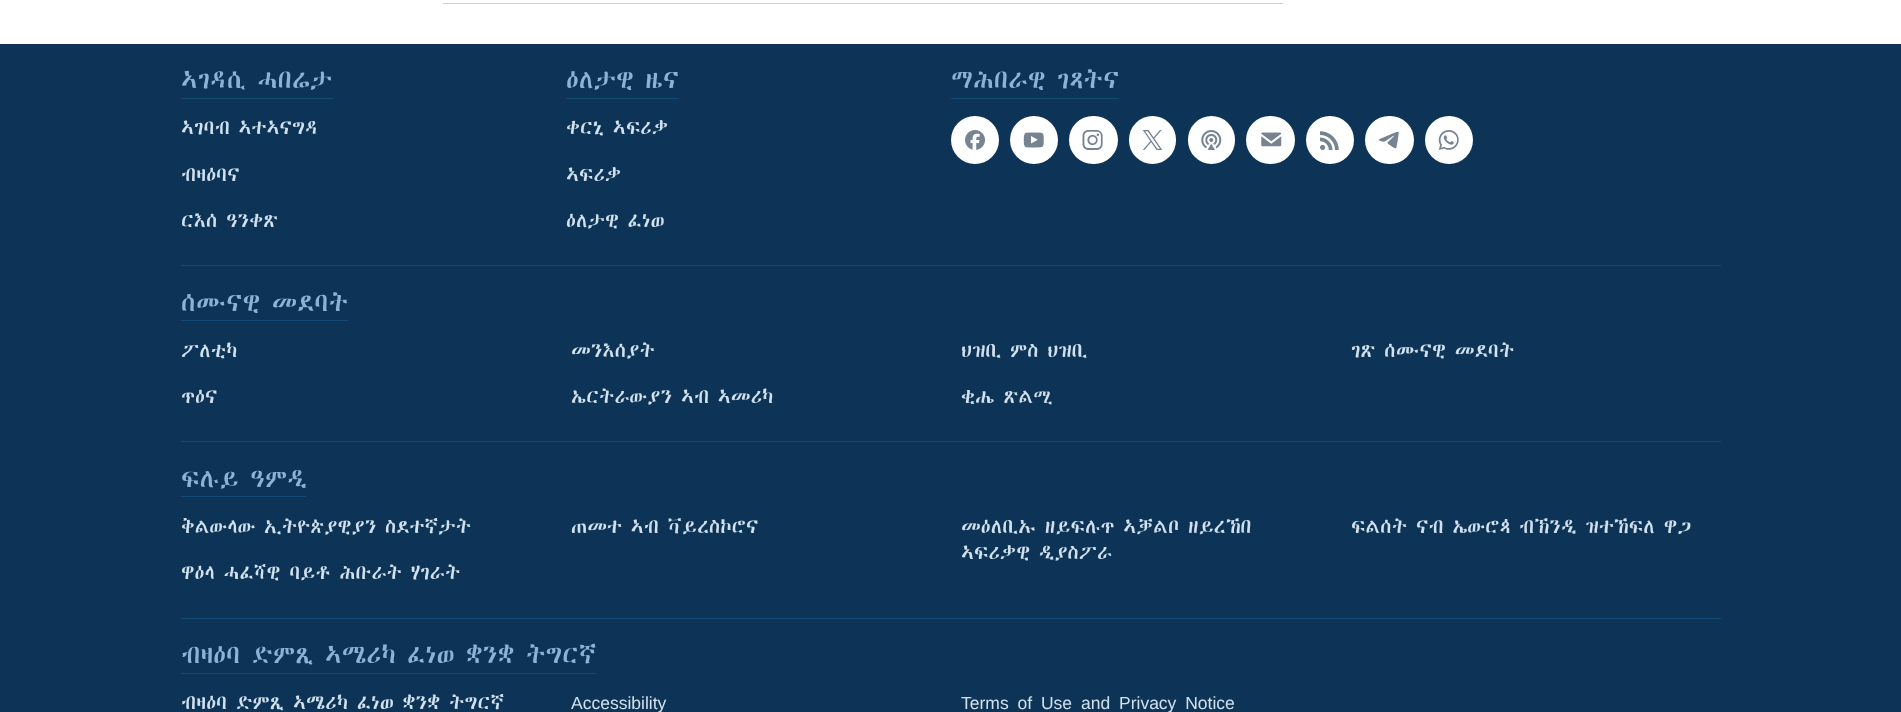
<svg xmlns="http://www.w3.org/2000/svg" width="1901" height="712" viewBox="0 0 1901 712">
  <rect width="100%" height="100%" fill="#ffffff"/>
  <rect x="443" y="3" width="840" height="1" fill="#cbd1d6"/>
  <rect x="0" y="44" width="1901" height="668" fill="#0d3456"/>
  <rect x="181" y="98" width="152" height="1" fill="#134976"/>
  <text x="181" y="88" font-family="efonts" font-size="22.5" fill="#8db3d4">ኣገዳሲ ሓበሬታ</text>
  <text x="181" y="134" font-family="efonts" font-size="17.5" fill="#d1e1ee">ኣገባብ ኣተኣናግዳ</text>
  <text x="181" y="181" font-family="efonts" font-size="17.5" fill="#d1e1ee">ብዛዕባና</text>
  <text x="181" y="227" font-family="efonts" font-size="17.5" fill="#d1e1ee">ርእሰ ዓንቀጽ</text>
  <rect x="566" y="98" width="113" height="1" fill="#134976"/>
  <text x="566" y="88" font-family="efonts" font-size="22.5" fill="#8db3d4">ዕለታዊ ዜና</text>
  <text x="566" y="134" font-family="efonts" font-size="17.5" fill="#d1e1ee">ቀርኒ ኣፍሪቃ</text>
  <text x="566" y="181" font-family="efonts" font-size="17.5" fill="#d1e1ee">ኣፍሪቃ</text>
  <text x="566" y="227" font-family="efonts" font-size="17.5" fill="#d1e1ee">ዕለታዊ ፈነወ</text>
  <rect x="951" y="98" width="168" height="1" fill="#134976"/>
  <text x="951" y="88" font-family="efonts" font-size="22.5" fill="#8db3d4">ማሕበራዊ ገጻትና</text>
  <circle cx="975" cy="140" r="24" fill="#ffffff"/>
  <image x="965" y="130" width="20" height="20" href="img1.png"/>
  <circle cx="1034" cy="140" r="24" fill="#ffffff"/>
  <image x="1023" y="132" width="21" height="16" href="img2.png"/>
  <rect x="1069" y="116" width="49" height="48" rx="24" fill="#ffffff"/>
  <image x="1082" y="130" width="21" height="20" href="img3.png"/>
  <rect x="1129" y="116" width="47" height="48" rx="23.5" fill="#ffffff"/>
  <image x="1142" y="130" width="21" height="20" href="img4.png"/>
  <rect x="1188" y="116" width="47" height="48" rx="23.5" fill="#ffffff"/>
  <image x="1201" y="130" width="21" height="20" href="img5.png"/>
  <rect x="1246" y="116" width="49" height="48" rx="24" fill="#ffffff"/>
  <image x="1261" y="132" width="21" height="15" href="img6.png"/>
  <circle cx="1330" cy="140" r="24" fill="#ffffff"/>
  <image x="1320" y="131" width="19" height="19" href="img7.png"/>
  <rect x="1365" y="116" width="49" height="48" rx="24" fill="#ffffff"/>
  <image x="1378" y="131" width="21" height="18" href="img8.png"/>
  <circle cx="1449" cy="140" r="24" fill="#ffffff"/>
  <image x="1438" y="130" width="21" height="20" href="img9.png"/>
  <rect x="181" y="265" width="1540" height="1" fill="#134976"/>
  <rect x="181" y="320" width="167" height="1" fill="#134976"/>
  <text x="181" y="311" font-family="efonts" font-size="22.5" fill="#8db3d4">ሰሙናዊ መደባት</text>
  <text x="181" y="357" font-family="efonts" font-size="17.5" fill="#d1e1ee">ፖለቲካ</text>
  <text x="571" y="357" font-family="efonts" font-size="17.5" fill="#d1e1ee">መንእሰያት</text>
  <text x="961" y="357" font-family="efonts" font-size="17.5" fill="#d1e1ee">ህዝቢ ምስ ህዝቢ</text>
  <text x="1351" y="357" font-family="efonts" font-size="17.5" fill="#d1e1ee">ገጽ ሰሙናዊ መደባት</text>
  <text x="181" y="403" font-family="efonts" font-size="17.5" fill="#d1e1ee">ጥዕና</text>
  <text x="571" y="403" font-family="efonts" font-size="17.5" fill="#d1e1ee">ኤርትራውያን ኣብ ኣመሪካ</text>
  <text x="961" y="403" font-family="efonts" font-size="17.5" fill="#d1e1ee">ቂሔ ጽልሚ</text>
  <rect x="181" y="441" width="1540" height="1" fill="#134976"/>
  <rect x="181" y="496" width="125" height="1" fill="#134976"/>
  <text x="181" y="487" font-family="efonts" font-size="22.5" fill="#8db3d4">ፍሉይ ዓምዲ</text>
  <text x="181" y="533" font-family="efonts" font-size="17.5" fill="#d1e1ee">ቅልውላው ኢትዮጵያዊያን ስደተኛታት</text>
  <text x="571" y="533" font-family="efonts" font-size="17.5" fill="#d1e1ee">ጠመተ ኣብ ቫይረስኮሮና</text>
  <text x="961" y="533" font-family="efonts" font-size="17.5" fill="#d1e1ee">መዕለቢኡ ዘይፍሉጥ ኣቓልቦ ዘይረኸበ</text>
  <text x="961" y="559" font-family="efonts" font-size="17.5" fill="#d1e1ee">ኣፍሪቃዊ ዲያስፖራ</text>
  <text x="1351" y="533" font-family="efonts" font-size="17.5" fill="#d1e1ee">ፍልሰት ናብ ኤውሮጳ ብኽንዲ ዝተኸፍለ ዋጋ</text>
  <text x="181" y="579" font-family="efonts" font-size="17.5" fill="#d1e1ee">ዋዕላ ሓፈሻዊ ባይቶ ሕቡራት ሃገራት</text>
  <rect x="181" y="618" width="1540" height="1" fill="#134976"/>
  <rect x="181" y="673" width="415" height="1" fill="#134976"/>
  <text x="181" y="663" font-family="efonts" font-size="22.5" fill="#8db3d4">ብዛዕባ ድምጺ ኣሜሪካ ፈነወ ቋንቋ ትግርኛ</text>
  <text x="181" y="709" font-family="efonts" font-size="17.5" fill="#d1e1ee">ብዛዕባ ድምጺ ኣሜሪካ ፈነወ ቋንቋ ትግርኛ</text>
  <text x="571" y="709" font-family="Liberation Sans" font-size="17.5" fill="#d1e1ee">Accessibility</text>
  <text x="961" y="709" word-spacing="4" font-family="Liberation Sans" font-size="17.5" fill="#d1e1ee">Terms of Use and Privacy Notice</text>
</svg>
